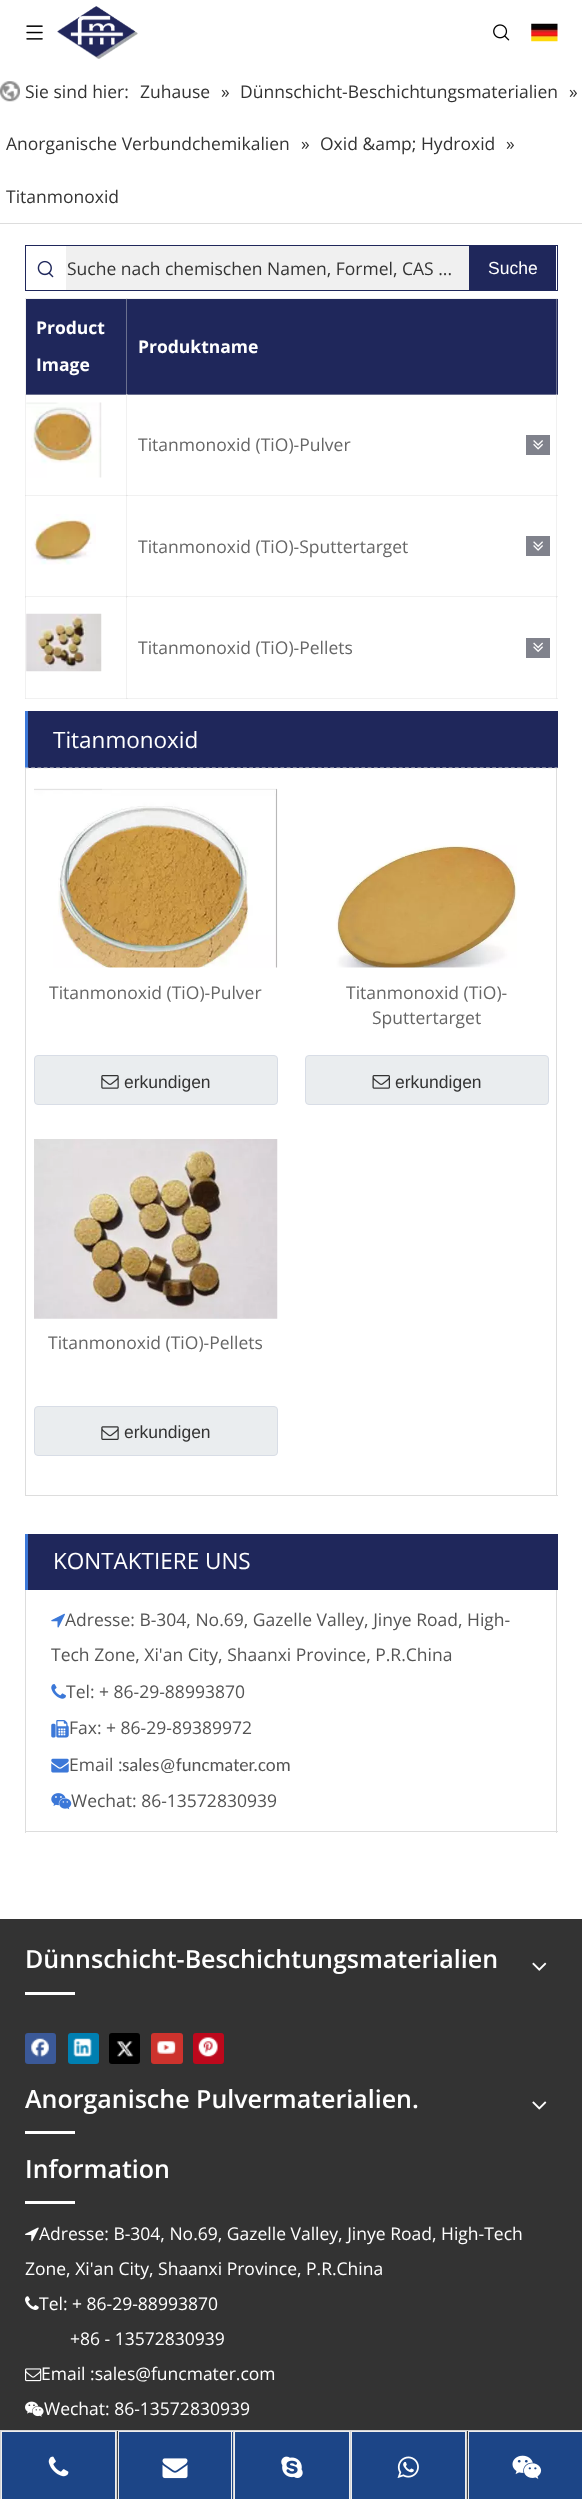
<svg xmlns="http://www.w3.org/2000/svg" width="582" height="2499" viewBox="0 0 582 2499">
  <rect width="100%" height="100%" fill="#ffffff"/>
  <rect x="25" y="298" width="1" height="198" fill="#f1f1f1"/>
  <rect x="25" y="298" width="533" height="1" fill="#f1f1f1"/>
  <rect x="25" y="298" width="1" height="1" fill="#e9e9e9"/>
  <rect x="25" y="394" width="1" height="1" fill="#e4e4e4"/>
  <rect x="25" y="495" width="103" height="1" fill="#f1f1f1"/>
  <rect x="126" y="394" width="1" height="102" fill="#f1f1f1"/>
  <rect x="126" y="495" width="432" height="1" fill="#f1f1f1"/>
  <rect x="126" y="495" width="2" height="1" fill="#e9e9e9"/>
  <rect x="556" y="394" width="1" height="102" fill="#f1f1f1"/>
  <rect x="25" y="495" width="1" height="103" fill="#f1f1f1"/>
  <rect x="25" y="495" width="1" height="1" fill="#e4e4e4"/>
  <rect x="25" y="596" width="103" height="1" fill="#f1f1f1"/>
  <rect x="126" y="495" width="1" height="103" fill="#f1f1f1"/>
  <rect x="126" y="495" width="1" height="1" fill="#e1e1e1"/>
  <rect x="126" y="596" width="432" height="1" fill="#f1f1f1"/>
  <rect x="126" y="596" width="2" height="1" fill="#e9e9e9"/>
  <rect x="556" y="495" width="1" height="103" fill="#f1f1f1"/>
  <rect x="556" y="495" width="1" height="1" fill="#e4e4e4"/>
  <rect x="25" y="596" width="1" height="103" fill="#f1f1f1"/>
  <rect x="25" y="596" width="1" height="2" fill="#e9e9e9"/>
  <rect x="25" y="596" width="1" height="1" fill="#e4e4e4"/>
  <rect x="25" y="698" width="103" height="1" fill="#f1f1f1"/>
  <rect x="25" y="698" width="1" height="1" fill="#e9e9e9"/>
  <rect x="126" y="596" width="1" height="103" fill="#f1f1f1"/>
  <rect x="126" y="596" width="1" height="2" fill="#e9e9e9"/>
  <rect x="126" y="596" width="1" height="1" fill="#e1e1e1"/>
  <rect x="126" y="698" width="432" height="1" fill="#f1f1f1"/>
  <rect x="126" y="698" width="2" height="1" fill="#e9e9e9"/>
  <rect x="126" y="698" width="1" height="1" fill="#e4e4e4"/>
  <image x="26" y="25" width="17" height="15" href="img1.png"/>
  <image x="57" y="6" width="81" height="53" href="img2.png"/>
  <image x="493" y="24" width="17" height="17" href="img3.png"/>
  <image x="531" y="23" width="27" height="19" href="img4.png"/>
  <rect x="0" y="223" width="582" height="1" fill="#dddddd"/>
  <image x="0" y="81" width="20" height="21" href="img5.png"/>
  <text x="25" y="98" font-family="Open Sans" font-size="17.5" fill="#333333">Sie sind hier:</text>
  <text x="140" y="98" font-family="Open Sans" font-size="17.5" fill="#333333">Zuhause</text>
  <text x="221" y="98" font-family="Open Sans" font-size="17.5" fill="#333333">»</text>
  <text x="240" y="98" font-family="Open Sans" font-size="17.5" fill="#333333">Dünnschicht-Beschichtungsmaterialien</text>
  <text x="569" y="98" font-family="Open Sans" font-size="17.5" fill="#333333">»</text>
  <text x="6" y="150" font-family="Open Sans" font-size="17.5" fill="#333333">Anorganische Verbundchemikalien</text>
  <text x="301" y="150" font-family="Open Sans" font-size="17.5" fill="#333333">»</text>
  <text x="320" y="150" font-family="Open Sans" font-size="17.5" fill="#333333">Oxid &amp;amp; Hydroxid</text>
  <text x="506" y="150" font-family="Open Sans" font-size="17.5" fill="#333333">»</text>
  <text x="6" y="203" font-family="Open Sans" font-size="17.5" fill="#333333">Titanmonoxid</text>
  <rect x="25.5" y="245.5" width="532" height="45" fill="none" stroke="#1f275b"/>
  <image x="37" y="260" width="17" height="18" href="img6.png"/>
  <rect x="66" y="246" width="403" height="44" fill="#f0f0f0"/>
  <text x="67" y="275" font-family="Open Sans" font-size="17.5" fill="#333333">Suche nach chemischen Namen, Formel, CAS ...</text>
  <rect x="469" y="246" width="87" height="44" fill="#1f275b"/>
  <text x="488" y="274" font-family="Liberation Sans" font-size="17.5" fill="#ffffff">Suche</text>
  <rect x="26" y="299" width="532" height="95" fill="#1f275b"/>
  <rect x="26" y="394" width="532" height="1" fill="#6b708f"/>
  <rect x="126" y="299" width="1" height="96" fill="#6b708f"/>
  <rect x="126" y="394" width="2" height="1" fill="#999cae"/>
  <rect x="126" y="394" width="1" height="1" fill="#c4c6cc"/>
  <text x="36" y="334" font-family="Open Sans" font-size="17.5" font-weight="bold" fill="#ffffff">Product</text>
  <text x="36" y="371" font-family="Open Sans" font-size="17.5" font-weight="bold" fill="#ffffff">Image</text>
  <rect x="556" y="299" width="1" height="96" fill="#6b708f"/>
  <rect x="556" y="394" width="1" height="1" fill="#b4b6c1"/>
  <rect x="126" y="298" width="2" height="1" fill="#e9e9e9"/>
  <rect x="126" y="298" width="1" height="1" fill="#e4e4e4"/>
  <rect x="556" y="298" width="1" height="1" fill="#e9e9e9"/>
  <text x="138" y="353" font-family="Open Sans" font-size="17.5" font-weight="bold" fill="#ffffff">Produktname</text>
  <image x="26" y="402" width="76" height="76" href="img7.png"/>
  <text x="138" y="451" font-family="Open Sans" font-size="17.5" fill="#666666">Titanmonoxid (TiO)-Pulver</text>
  <rect x="526" y="435" width="24" height="20" fill="#80828c"/>
  <image x="533" y="440" width="10" height="10" href="img8.png"/>
  <image x="31" y="514" width="65" height="51" href="img9.png"/>
  <text x="138" y="553" font-family="Open Sans" font-size="17.5" fill="#666666">Titanmonoxid (TiO)-Sputtertarget</text>
  <rect x="526" y="536" width="24" height="20" fill="#80828c"/>
  <image x="533" y="541" width="10" height="10" href="img10.png"/>
  <image x="26" y="613" width="76" height="59" href="img11.png"/>
  <rect x="556" y="596" width="1" height="103" fill="#f1f1f1"/>
  <rect x="556" y="596" width="1" height="2" fill="#e9e9e9"/>
  <rect x="556" y="596" width="1" height="1" fill="#e4e4e4"/>
  <rect x="556" y="698" width="1" height="1" fill="#e9e9e9"/>
  <text x="138" y="654" font-family="Open Sans" font-size="17.5" fill="#666666">Titanmonoxid (TiO)-Pellets</text>
  <rect x="526" y="638" width="24" height="20" fill="#80828c"/>
  <image x="533" y="642" width="10" height="10" href="img12.png"/>
  <rect x="28" y="711" width="530" height="57" fill="#1f275b"/>
  <rect x="25" y="711" width="3" height="57" fill="#3c78d8"/>
  <text x="53" y="748" font-family="Open Sans" font-size="22.5" fill="#ffffff">Titanmonoxid</text>
  <path d="M25 768H557.5" fill="none" stroke="#dddddd" stroke-width="1.2" stroke-dasharray="3.75 2.48"/>
  <rect x="556" y="768" width="1" height="728" fill="#dddddd"/>
  <rect x="25" y="1495" width="533" height="1" fill="#dddddd"/>
  <rect x="25" y="768" width="1" height="728" fill="#dddddd"/>
  <image x="34" y="788" width="244" height="180" href="img13.png"/>
  <text x="49" y="999" font-family="Open Sans" font-size="17.5" fill="#666666">Titanmonoxid (TiO)-Pulver</text>
  <rect x="34.5" y="1055.5" width="243" height="49" rx="3.5" fill="#eaedef" stroke="#d8dde6"/>
  <image x="101" y="1075" width="18" height="14" href="img14.png"/>
  <text x="124" y="1088" font-family="Liberation Sans" font-size="17.5" fill="#333333">erkundigen</text>
  <image x="336" y="845" width="181" height="123" href="img15.png"/>
  <text x="346" y="999" font-family="Open Sans" font-size="17.5" fill="#666666">Titanmonoxid (TiO)-</text>
  <text x="372" y="1024" font-family="Open Sans" font-size="17.5" fill="#666666">Sputtertarget</text>
  <rect x="305.5" y="1055.5" width="243" height="49" rx="3.5" fill="#eaedef" stroke="#d8dde6"/>
  <image x="372" y="1075" width="18" height="14" href="img16.png"/>
  <text x="395" y="1088" font-family="Liberation Sans" font-size="17.5" fill="#333333">erkundigen</text>
  <image x="34" y="1139" width="244" height="180" href="img17.png"/>
  <text x="48" y="1349" font-family="Open Sans" font-size="17.5" fill="#666666">Titanmonoxid (TiO)-Pellets</text>
  <rect x="34.5" y="1406.5" width="243" height="49" rx="3.5" fill="#eaedef" stroke="#d8dde6"/>
  <image x="101" y="1426" width="18" height="14" href="img18.png"/>
  <text x="124" y="1438" font-family="Liberation Sans" font-size="17.5" fill="#333333">erkundigen</text>
  <rect x="28" y="1534" width="530" height="56" fill="#1f275b"/>
  <rect x="25" y="1534" width="3" height="56" fill="#3c78d8"/>
  <text x="53" y="1569" font-family="Open Sans" font-size="22.5" fill="#ffffff">KONTAKTIERE UNS</text>
  <rect x="556" y="1590" width="1" height="243" fill="#dddddd"/>
  <rect x="25" y="1831" width="533" height="1" fill="#dddddd"/>
  <rect x="25" y="1590" width="1" height="243" fill="#dddddd"/>
  <image x="51" y="1613" width="14" height="15" href="img19.png"/>
  <text x="65" y="1626" font-family="Open Sans" font-size="17.5" fill="#545454">Adresse: B-304, No.69, Gazelle Valley, Jinye Road, High-</text>
  <text x="51" y="1661" font-family="Open Sans" font-size="17.5" fill="#545454">Tech Zone, Xi'an City, Shaanxi Province, P.R.China</text>
  <image x="51" y="1684" width="15" height="15" href="img20.png"/>
  <text x="66" y="1698" font-family="Open Sans" font-size="17.5" fill="#545454">Tel: + 86-29-88993870</text>
  <image x="51" y="1720" width="18" height="18" href="img21.png"/>
  <text x="69" y="1734" font-family="Open Sans" font-size="17.5" fill="#545454">Fax: + 86-29-89389972</text>
  <image x="51" y="1758" width="18" height="15" href="img22.png"/>
  <text x="69" y="1771" font-family="Open Sans" font-size="17.5" fill="#545454">Email :</text>
  <text x="122" y="1771" font-family="Carlito" font-size="18.75" fill="#545454">sales@funcmater.com</text>
  <image x="51" y="1793" width="21" height="17" href="img23.png"/>
  <text x="71" y="1807" font-family="Open Sans" font-size="17.5" fill="#545454">Wechat: 86-13572830939</text>
  <rect x="0" y="1919" width="582" height="520" fill="#333333"/>
  <rect x="25" y="1992" width="50" height="3" fill="#ffffff"/>
  <text x="25" y="1968" font-family="Open Sans" font-size="25" font-weight="600" fill="#ffffff">Dünnschicht-Beschichtungsmaterialien</text>
  <image x="532" y="1962" width="15" height="9" href="img24.png"/>
  <rect x="25" y="2033" width="31" height="31" rx="3" fill="#3b5998"/>
  <image x="31" y="2038" width="18" height="19" href="img25.png"/>
  <rect x="68" y="2033" width="31" height="31" rx="3" fill="#007fb1"/>
  <image x="73" y="2038" width="19" height="19" href="img26.png"/>
  <rect x="109" y="2033" width="31" height="31" rx="3" fill="#000000"/>
  <image x="116" y="2041" width="18" height="16" href="img27.png"/>
  <rect x="151" y="2033" width="32" height="31" rx="3" fill="#cd332d"/>
  <image x="157" y="2041" width="19" height="13" href="img28.png"/>
  <rect x="193" y="2033" width="31" height="31" rx="3" fill="#bd081c"/>
  <image x="198" y="2037" width="20" height="20" href="img29.png"/>
  <rect x="0" y="2430" width="582" height="1" fill="#d3d3d3"/>
  <rect x="0" y="2431" width="1" height="68" fill="#d3d3d3"/>
  <rect x="2" y="2432" width="113" height="67" fill="#1c4587"/>
  <rect x="1" y="2431" width="115" height="1" fill="#eeeeee"/>
  <rect x="115" y="2431" width="1" height="68" fill="#eeeeee"/>
  <rect x="1" y="2431" width="1" height="68" fill="#eeeeee"/>
  <image x="48" y="2456" width="21" height="21" href="img30.png"/>
  <rect x="116" y="2431" width="1" height="68" fill="#d3d3d3"/>
  <rect x="117" y="2439" width="351" height="60" fill="#474747"/>
  <rect x="119" y="2432" width="114" height="67" fill="#1c4587"/>
  <rect x="118" y="2431" width="115" height="1" fill="#eeeeee"/>
  <rect x="231" y="2431" width="1" height="68" fill="#eeeeee"/>
  <rect x="118" y="2431" width="1" height="68" fill="#eeeeee"/>
  <image x="162" y="2458" width="26" height="21" href="img31.png"/>
  <rect x="233" y="2431" width="1" height="68" fill="#d3d3d3"/>
  <rect x="235" y="2432" width="114" height="67" fill="#1c4587"/>
  <rect x="234" y="2431" width="116" height="1" fill="#eeeeee"/>
  <rect x="349" y="2431" width="1" height="68" fill="#eeeeee"/>
  <rect x="234" y="2431" width="1" height="68" fill="#eeeeee"/>
  <image x="281" y="2456" width="22" height="22" href="img32.png"/>
  <rect x="350" y="2431" width="1" height="68" fill="#d3d3d3"/>
  <rect x="352" y="2432" width="113" height="67" fill="#1c4587"/>
  <rect x="351" y="2431" width="115" height="1" fill="#eeeeee"/>
  <rect x="465" y="2431" width="1" height="68" fill="#eeeeee"/>
  <rect x="351" y="2431" width="1" height="68" fill="#eeeeee"/>
  <image x="397" y="2456" width="22" height="22" href="img33.png"/>
  <rect x="466" y="2431" width="1" height="68" fill="#d3d3d3"/>
  <rect x="468.5" y="2431.5" width="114" height="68" fill="#1c4587" stroke="#eeeeee"/>
  <image x="512" y="2455" width="30" height="24" href="img34.png"/>
  <rect x="25" y="2131" width="50" height="3" fill="#ffffff"/>
  <text x="25" y="2108" font-family="Open Sans" font-size="25" font-weight="600" fill="#ffffff">Anorganische Pulvermaterialien.</text>
  <image x="532" y="2101" width="15" height="9" href="img35.png"/>
  <rect x="25" y="2201" width="50" height="3" fill="#ffffff"/>
  <text x="25" y="2178" font-family="Open Sans" font-size="25" font-weight="600" fill="#ffffff">Information</text>
  <image x="25" y="2227" width="14" height="15" href="img36.png"/>
  <text x="39" y="2240" font-family="Open Sans" font-size="17.5" fill="#ffffff">Adresse: B-304, No.69, Gazelle Valley, Jinye Road, High-Tech</text>
  <text x="25" y="2275" font-family="Open Sans" font-size="17.5" fill="#ffffff">Zone, Xi'an City, Shaanxi Province, P.R.China</text>
  <image x="25" y="2296" width="14" height="14" href="img37.png"/>
  <text x="39" y="2310" font-family="Open Sans" font-size="17.5" fill="#ffffff">Tel: + 86-29-88993870</text>
  <text x="70" y="2345" font-family="Open Sans" font-size="17.5" fill="#ffffff">+86 - 13572830939</text>
  <image x="25" y="2368" width="17" height="14" href="img38.png"/>
  <text x="41" y="2380" font-family="Open Sans" font-size="17.5" fill="#ffffff">Email :sales@funcmater.com</text>
  <image x="25" y="2401" width="19" height="16" href="img39.png"/>
  <text x="44" y="2415" font-family="Open Sans" font-size="17.5" fill="#ffffff">Wechat: 86-13572830939</text>
</svg>
